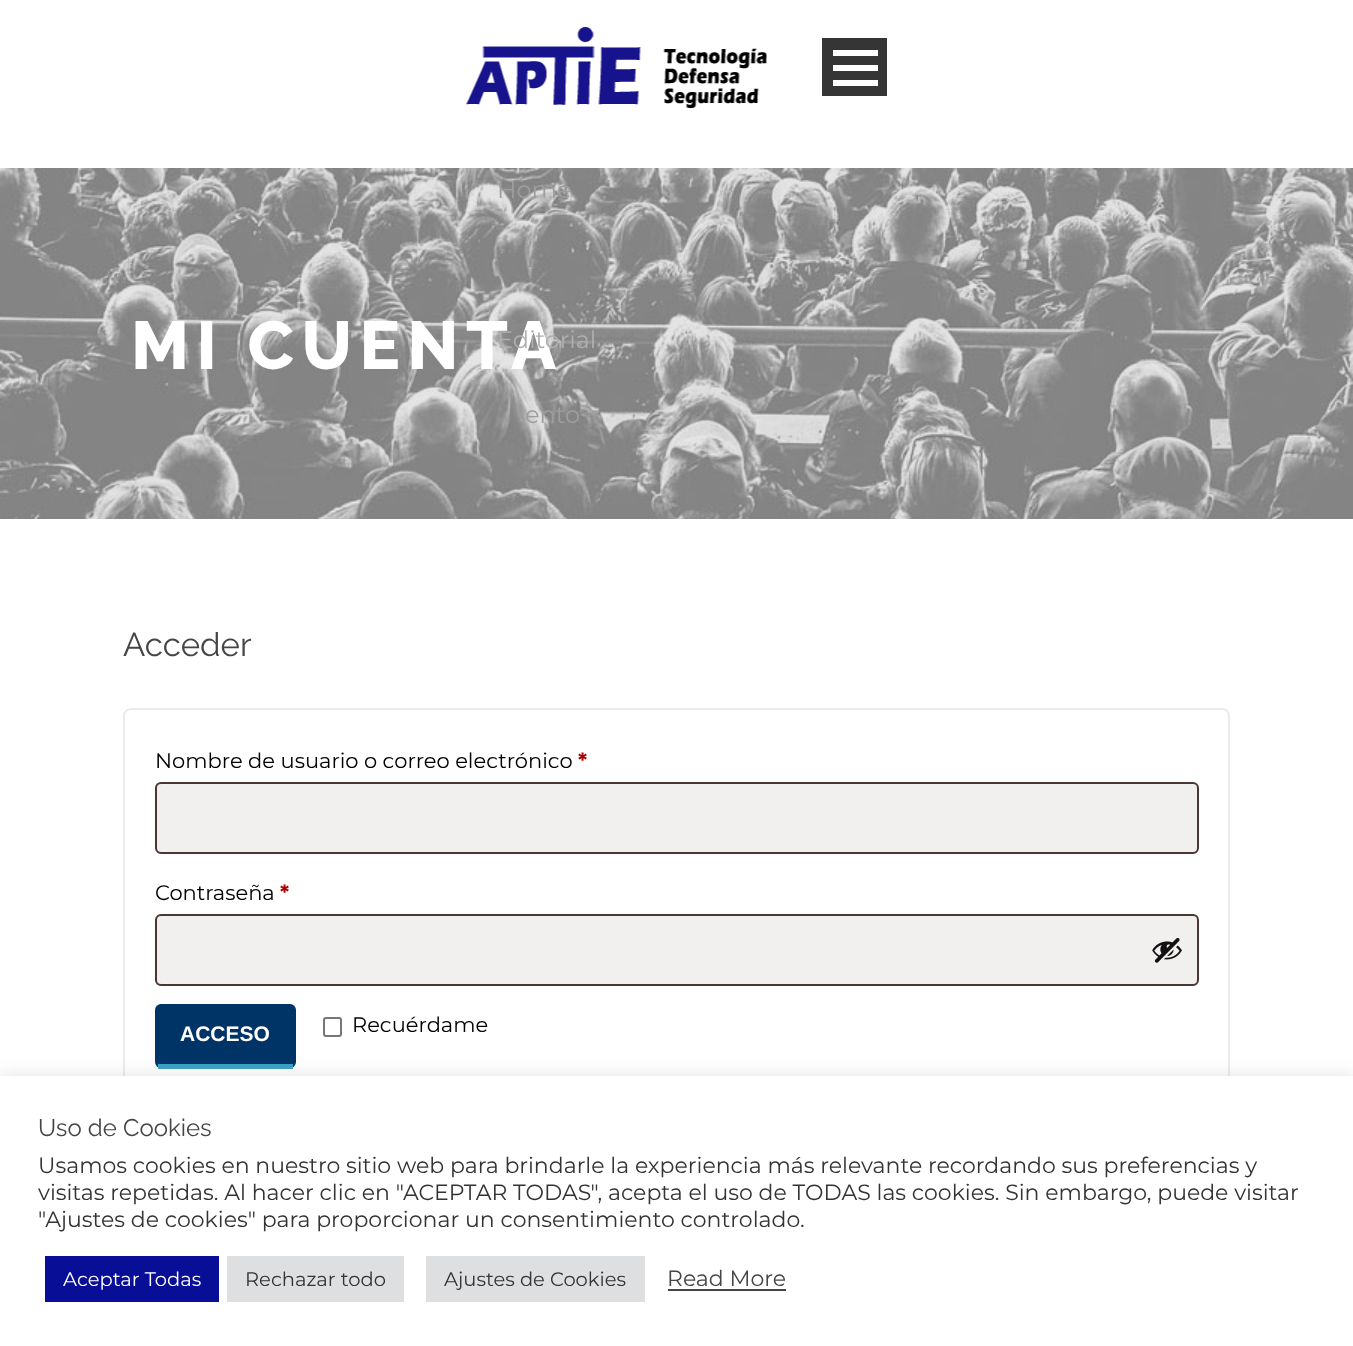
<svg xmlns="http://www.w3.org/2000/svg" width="1353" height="1346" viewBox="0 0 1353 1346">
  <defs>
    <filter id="blur1" x="-50%" y="-200%" width="200%" height="500%"><feGaussianBlur stdDeviation="7.5"/></filter>
  </defs>
  <rect width="100%" height="100%" fill="#ffffff"/>
  <image x="466" y="27" width="301" height="81" href="img1.png"/>
  <rect x="822" y="38" width="65" height="58" fill="#353535"/>
  <rect x="833" y="80" width="45" height="6" fill="#ffffff"/>
  <rect x="833" y="65" width="45" height="6" fill="#ffffff"/>
  <rect x="833" y="50" width="45" height="6" fill="#ffffff"/>
  <image x="0" y="168" width="1353" height="351" href="img2.png"/>
  <text x="497" y="198" font-family="Montserrat" font-size="24" fill="#9e9e9e">Home</text>
  <text x="131" y="369" font-family="Raleway" font-size="67.5" font-weight="800" letter-spacing="7.5" fill="#ffffff">MI CUENTA</text>
  <text x="497" y="348" font-family="Montserrat" font-size="24" fill="#afafaf">Editorial</text>
  <text x="525" y="423" font-family="Montserrat" font-size="24" fill="#9e9e9e">ento</text>
  <text x="123" y="656" font-family="Raleway" font-size="33" fill="#454545">Acceder</text>
  <rect x="124" y="709" width="1105" height="474" rx="7" fill="none" stroke="#ebebeb" stroke-width="2"/>
  <text x="155" y="768" font-family="Montserrat" font-size="21" fill="#000000">Nombre de usuario o correo electrónico</text>
  <text x="578" y="768" font-family="Montserrat" font-size="21" font-weight="bold" fill="#aa0000">*</text>
  <rect x="155" y="782" width="1044" height="72" rx="6" fill="#f2efef"/>
  <rect x="156" y="783" width="1042" height="70" rx="5" fill="none" stroke="#200707" stroke-opacity="0.8" stroke-width="2"/>
  <text x="155" y="900" font-family="Montserrat" font-size="21" fill="#000000">Contraseña</text>
  <text x="280" y="900" font-family="Montserrat" font-size="21" font-weight="bold" fill="#aa0000">*</text>
  <rect x="155" y="914" width="1044" height="72" rx="6" fill="#f2efef"/>
  <rect x="156" y="915" width="1042" height="70" rx="5" fill="none" stroke="#200707" stroke-opacity="0.8" stroke-width="2"/>
  <image x="1152" y="938" width="30" height="25" href="img3.png"/>
  <rect x="155" y="1004" width="141" height="64" rx="6" fill="#003466"/>
  <rect x="158" y="1064" width="135" height="5" fill="#389ec5"/>
  <text x="180" y="1041" font-family="Liberation Sans" font-size="21" font-weight="bold" fill="#ffffff">ACCESO</text>
  <rect x="324" y="1018" width="17" height="18" rx="2" fill="none" stroke="#767676" stroke-width="2"/>
  <text x="352" y="1032" font-family="Montserrat" font-size="21" fill="#000000">Recuérdame</text>
  <rect x="0" y="1074" width="1353" height="272" fill="#acabab" fill-opacity="0.3" filter="url(#blur1)"/>
  <rect x="0" y="1076" width="1353" height="270" fill="#ffffff"/>
  <text x="38" y="1136" font-family="Raleway" font-size="24" fill="#454545">Uso de Cookies</text>
  <text x="38" y="1173" font-family="Montserrat" font-size="22" fill="#333333">Usamos cookies en nuestro sitio web para brindarle la experiencia más relevante recordando sus preferencias y</text>
  <text x="38" y="1200" font-family="Montserrat" font-size="22" fill="#333333">visitas repetidas. Al hacer clic en "ACEPTAR TODAS", acepta el uso de TODAS las cookies. Sin embargo, puede visitar</text>
  <text x="38" y="1227" font-family="Montserrat" font-size="22" fill="#333333">"Ajustes de cookies" para proporcionar un consentimiento controlado.</text>
  <rect x="45" y="1256" width="174" height="46" fill="#080e96"/>
  <text x="63" y="1286" font-family="Montserrat" font-size="19.5" fill="#ffffff">Aceptar Todas</text>
  <rect x="227" y="1256" width="177" height="46" fill="#dedfe0"/>
  <text x="245" y="1286" font-family="Montserrat" font-size="19.5" fill="#333333">Rechazar todo</text>
  <rect x="426" y="1256" width="219" height="46" fill="#dedfe0"/>
  <text x="444" y="1286" font-family="Montserrat" font-size="19.5" fill="#333333">Ajustes de Cookies</text>
  <text x="667" y="1286" font-family="Montserrat" font-size="22" fill="#454545">Read More</text>
  <rect x="668" y="1289" width="118" height="2" fill="#444444"/>
</svg>
